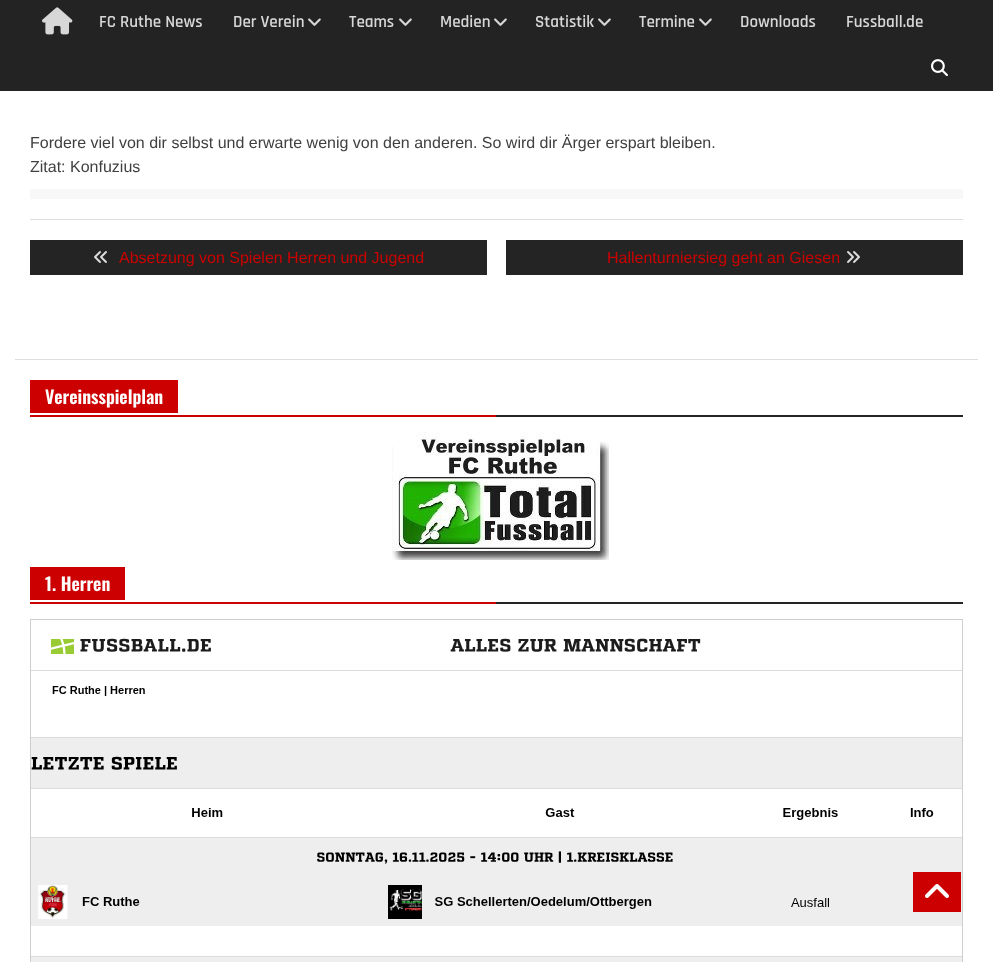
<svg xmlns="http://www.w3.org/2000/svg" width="993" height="962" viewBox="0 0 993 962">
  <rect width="100%" height="100%" fill="#ffffff"/>
  <rect x="0" y="0" width="993" height="91" fill="#232323"/>
  <image x="42" y="7" width="31" height="28" href="img1.png"/>
  <text x="99" y="27" font-family="Rajdhani" font-size="17" font-weight="600" fill="#d7d7d7">FC Ruthe News</text>
  <text x="233" y="27" font-family="Rajdhani" font-size="17" font-weight="600" fill="#d7d7d7">Der Verein</text>
  <image x="308" y="18" width="13" height="8" href="img2.png"/>
  <text x="349" y="27" font-family="Rajdhani" font-size="17" font-weight="600" fill="#d7d7d7">Teams</text>
  <image x="399" y="18" width="13" height="8" href="img2.png"/>
  <text x="440" y="27" font-family="Rajdhani" font-size="17" font-weight="600" fill="#d7d7d7">Medien</text>
  <image x="494" y="18" width="13" height="8" href="img2.png"/>
  <text x="535" y="27" font-family="Rajdhani" font-size="17" font-weight="600" fill="#d7d7d7">Statistik</text>
  <image x="598" y="18" width="13" height="8" href="img2.png"/>
  <text x="639" y="27" font-family="Rajdhani" font-size="17" font-weight="600" fill="#d7d7d7">Termine</text>
  <image x="699" y="18" width="13" height="8" href="img2.png"/>
  <text x="740" y="27" font-family="Rajdhani" font-size="17" font-weight="600" fill="#d7d7d7">Downloads</text>
  <text x="846" y="27" font-family="Rajdhani" font-size="17" font-weight="600" fill="#d7d7d7">Fussball.de</text>
  <image x="931" y="59" width="17" height="18" href="img3.png"/>
  <rect x="15" y="359" width="963" height="1" fill="#dddddd"/>
  <rect x="30" y="219" width="933" height="1" fill="#dddddd"/>
  <text x="30" y="148" font-family="Liberation Sans" font-size="16" fill="#404040">Fordere viel von dir selbst und erwarte wenig von den anderen. So wird dir Ärger erspart bleiben.</text>
  <text x="30" y="172" font-family="Liberation Sans" font-size="16" fill="#404040">Zitat: Konfuzius</text>
  <rect x="30" y="189" width="933" height="10" fill="#f9f8f8"/>
  <rect x="30" y="240" width="457" height="35" fill="#242424"/>
  <image x="94" y="251" width="13" height="12" href="img4.png"/>
  <text x="119" y="263" font-family="Liberation Sans" font-size="16" fill="#cc0000">Absetzung von Spielen Herren und Jugend</text>
  <rect x="506" y="240" width="457" height="35" fill="#242424"/>
  <text x="607" y="263" font-family="Liberation Sans" font-size="16" fill="#cc0000">Hallenturniersieg geht an Giesen</text>
  <image x="847" y="251" width="13" height="12" href="img5.png"/>
  <rect x="496" y="415" width="467" height="2" fill="#242424"/>
  <rect x="30" y="380" width="148" height="33" fill="#cc0000"/>
  <text x="45" y="404" font-family="Oswald" font-size="18" font-weight="600" fill="#ffffff">Vereinsspielplan</text>
  <rect x="30" y="415" width="466" height="2" fill="#cc0000"/>
  <image x="392" y="432" width="217" height="128" href="img6.png"/>
  <rect x="496" y="602" width="467" height="2" fill="#242424"/>
  <rect x="30" y="567" width="95" height="33" fill="#cc0000"/>
  <text x="45" y="591" font-family="Oswald" font-size="18" font-weight="600" fill="#ffffff">1. Herren</text>
  <rect x="30" y="602" width="466" height="2" fill="#cc0000"/>
  <rect x="30.5" y="619.5" width="932" height="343" fill="none" stroke="#cecece"/>
  <image x="31" y="638" width="931" height="324" href="img7.png"/>
  <rect x="913" y="872" width="48" height="40" fill="#cc0000"/>
  <image x="925" y="884" width="24" height="14" href="img8.png"/>
</svg>
